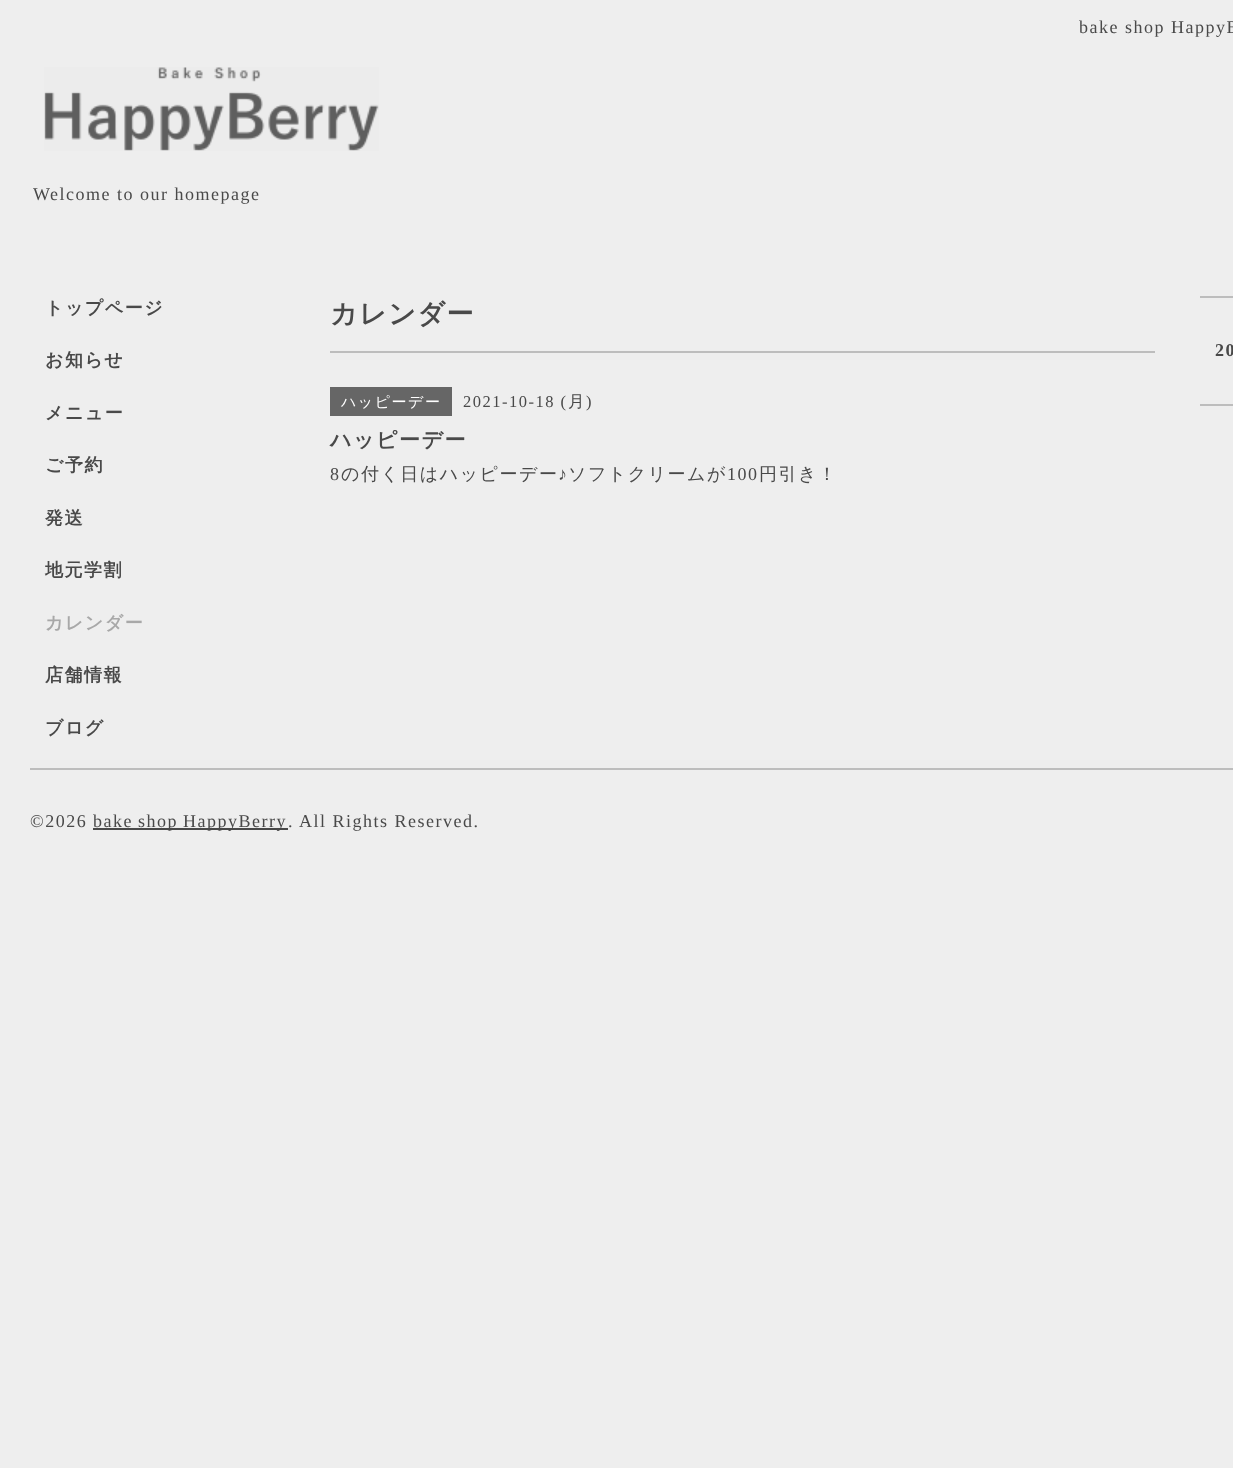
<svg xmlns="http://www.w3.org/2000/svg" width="1233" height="1468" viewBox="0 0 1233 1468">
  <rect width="100%" height="100%" fill="#eeeeee"/>
  <text x="1079" y="33" font-family="Liberation Serif" font-size="18" letter-spacing="1.5" fill="#494949">bake shop HappyB</text>
  <image x="44" y="67" width="335" height="84" href="img1.png"/>
  <text x="33" y="200" font-family="Liberation Serif" font-size="18" letter-spacing="1.5" fill="#494949">Welcome to our homepage</text>
  <text x="45" y="314" font-family="WenQuanYi Zen Hei" font-size="18" font-weight="bold" letter-spacing="1.5" fill="#494949">トップページ</text>
  <text x="45" y="366" font-family="WenQuanYi Zen Hei" font-size="18" font-weight="bold" letter-spacing="1.5" fill="#494949">お知らせ</text>
  <text x="45" y="419" font-family="WenQuanYi Zen Hei" font-size="18" font-weight="bold" letter-spacing="1.5" fill="#494949">メニュー</text>
  <text x="45" y="471" font-family="WenQuanYi Zen Hei" font-size="18" font-weight="bold" letter-spacing="1.5" fill="#494949">ご予約</text>
  <text x="45" y="524" font-family="WenQuanYi Zen Hei" font-size="18" font-weight="bold" letter-spacing="1.5" fill="#494949">発送</text>
  <text x="45" y="576" font-family="WenQuanYi Zen Hei" font-size="18" font-weight="bold" letter-spacing="1.5" fill="#494949">地元学割</text>
  <text x="45" y="629" font-family="WenQuanYi Zen Hei" font-size="18" font-weight="bold" letter-spacing="1.5" fill="#a8a8a8">カレンダー</text>
  <text x="45" y="681" font-family="WenQuanYi Zen Hei" font-size="18" font-weight="bold" letter-spacing="1.5" fill="#494949">店舗情報</text>
  <text x="45" y="734" font-family="WenQuanYi Zen Hei" font-size="18" font-weight="bold" letter-spacing="1.5" fill="#494949">ブログ</text>
  <text x="330" y="323" font-family="WenQuanYi Zen Hei" font-size="27" font-weight="bold" letter-spacing="1.5" fill="#494949">カレンダー</text>
  <rect x="330" y="351" width="825" height="2" fill="#bdbdbd"/>
  <rect x="330" y="387" width="122" height="29" fill="#666666"/>
  <text x="341" y="407" font-family="WenQuanYi Zen Hei" font-size="15" font-weight="500" letter-spacing="1.5" fill="#ffffff">ハッピーデー</text>
  <text x="463" y="407" font-family="Liberation Serif" font-size="16.5" letter-spacing="1.5" fill="#494949">2021-10-18 (</text>
  <text x="568" y="407" font-family="WenQuanYi Zen Hei" font-size="16.5" font-weight="500" letter-spacing="1.5" fill="#494949">月</text>
  <text x="586" y="407" font-family="Liberation Serif" font-size="16.5" letter-spacing="1.5" fill="#494949">)</text>
  <text x="330" y="447" font-family="WenQuanYi Zen Hei" font-size="21" font-weight="bold" letter-spacing="1.5" fill="#494949">ハッピーデー</text>
  <text x="330" y="480" font-family="Liberation Serif" font-size="18" letter-spacing="1.5" fill="#494949">8</text>
  <text x="341" y="480" font-family="WenQuanYi Zen Hei" font-size="18" font-weight="500" letter-spacing="1.5" fill="#494949">の付く日はハッピーデー</text>
  <text x="558" y="480" font-family="Liberation Serif" font-size="18" letter-spacing="1.5" fill="#494949">♪</text>
  <text x="568" y="480" font-family="WenQuanYi Zen Hei" font-size="18" font-weight="500" letter-spacing="1.5" fill="#494949">ソフトクリームが</text>
  <text x="727" y="480" font-family="Liberation Serif" font-size="18" letter-spacing="1.5" fill="#494949">100</text>
  <text x="759" y="480" font-family="WenQuanYi Zen Hei" font-size="18" font-weight="500" letter-spacing="1.5" fill="#494949">円引き！</text>
  <rect x="1200" y="296" width="33" height="2" fill="#bdbdbd"/>
  <rect x="1200" y="404" width="33" height="2" fill="#bdbdbd"/>
  <text x="1215" y="356" font-family="Liberation Serif" font-size="18" font-weight="bold" letter-spacing="1.5" fill="#494949">20</text>
  <rect x="30" y="768" width="1203" height="2" fill="#bdbdbd"/>
  <text x="30" y="827" font-family="Liberation Serif" font-size="18" letter-spacing="1.5" fill="#494949">©2026</text>
  <rect x="93" y="828" width="195" height="2" fill="#494949"/>
  <text x="93" y="827" word-spacing="-1" font-family="Liberation Serif" font-size="18" letter-spacing="1.5" fill="#494949">bake shop HappyBerry</text>
  <text x="288" y="827" font-family="Liberation Serif" font-size="18" letter-spacing="1.5" fill="#494949">. All Rights Reserved.</text>
</svg>
